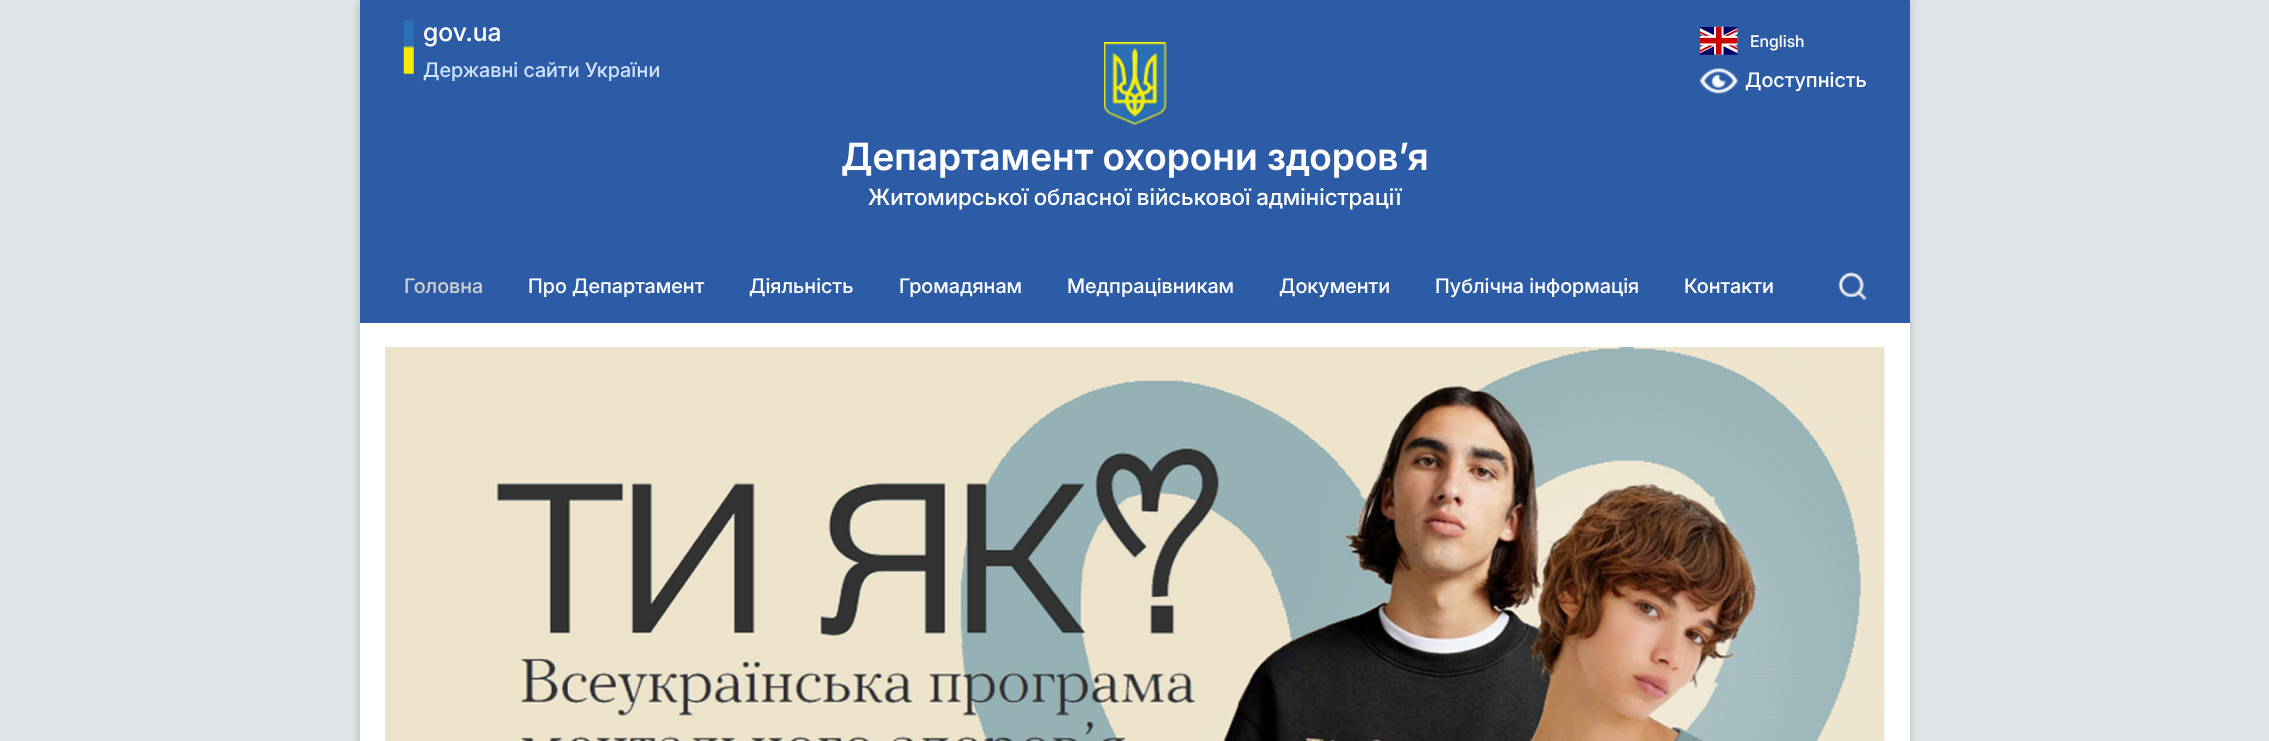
<svg xmlns="http://www.w3.org/2000/svg" width="2269" height="741" viewBox="0 0 2269 741">
  <defs>
    <filter id="blur1" x="-50%" y="-200%" width="200%" height="500%"><feGaussianBlur stdDeviation="5"/></filter>
  </defs>
  <rect width="100%" height="100%" fill="#dee4e7"/>
  <rect x="360" y="1" width="1550" height="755" fill="#000000" fill-opacity="0.2" filter="url(#blur1)"/>
  <rect x="360" y="323" width="1550" height="418" fill="#ffffff"/>
  <rect x="360" y="0" width="1550" height="323" fill="#2d5ca6"/>
  <image x="403" y="20" width="11" height="54" href="img1.png"/>
  <text x="423" y="41" font-family="Inter" font-size="25" font-weight="500" fill="#ffffff">gov.ua</text>
  <text x="423" y="77" font-family="Inter" font-size="20" font-weight="500" fill="#cfe2ff">Державні сайти України</text>
  <image x="1700" y="26" width="38" height="29" href="img2.png"/>
  <text x="1750" y="47" font-family="Inter" font-size="16" font-weight="500" fill="#ffffff">English</text>
  <image x="1699" y="68" width="39" height="26" href="img3.png"/>
  <text x="1745" y="87" font-family="Inter" font-size="20" font-weight="500" fill="#ffffff">Доступність</text>
  <image x="1104" y="42" width="63" height="84" href="img4.png"/>
  <text x="841" y="170" font-family="Inter" font-size="37.5" font-weight="600" fill="#ffffff">Департамент охорони здоров’я</text>
  <text x="868" y="205" font-family="Inter" font-size="22.5" font-weight="500" fill="#ffffff">Житомирської обласної військової адміністрації</text>
  <text x="404" y="293" font-family="Inter" font-size="20" font-weight="500" fill="#cfcfcf">Головна</text>
  <text x="528" y="293" font-family="Inter" font-size="20" font-weight="500" fill="#ffffff">Про Департамент</text>
  <text x="749" y="293" font-family="Inter" font-size="20" font-weight="500" fill="#ffffff">Діяльність</text>
  <text x="899" y="293" font-family="Inter" font-size="20" font-weight="500" fill="#ffffff">Громадянам</text>
  <text x="1067" y="293" font-family="Inter" font-size="20" font-weight="500" fill="#ffffff">Медпрацівникам</text>
  <text x="1279" y="293" font-family="Inter" font-size="20" font-weight="500" fill="#ffffff">Документи</text>
  <text x="1435" y="293" font-family="Inter" font-size="20" font-weight="500" fill="#ffffff">Публічна інформація</text>
  <text x="1684" y="293" font-family="Inter" font-size="20" font-weight="500" fill="#ffffff">Контакти</text>
  <image x="1838" y="272" width="29" height="29" href="img5.png"/>
  <image x="385" y="347" width="1500" height="394" href="img6.png"/>
</svg>
